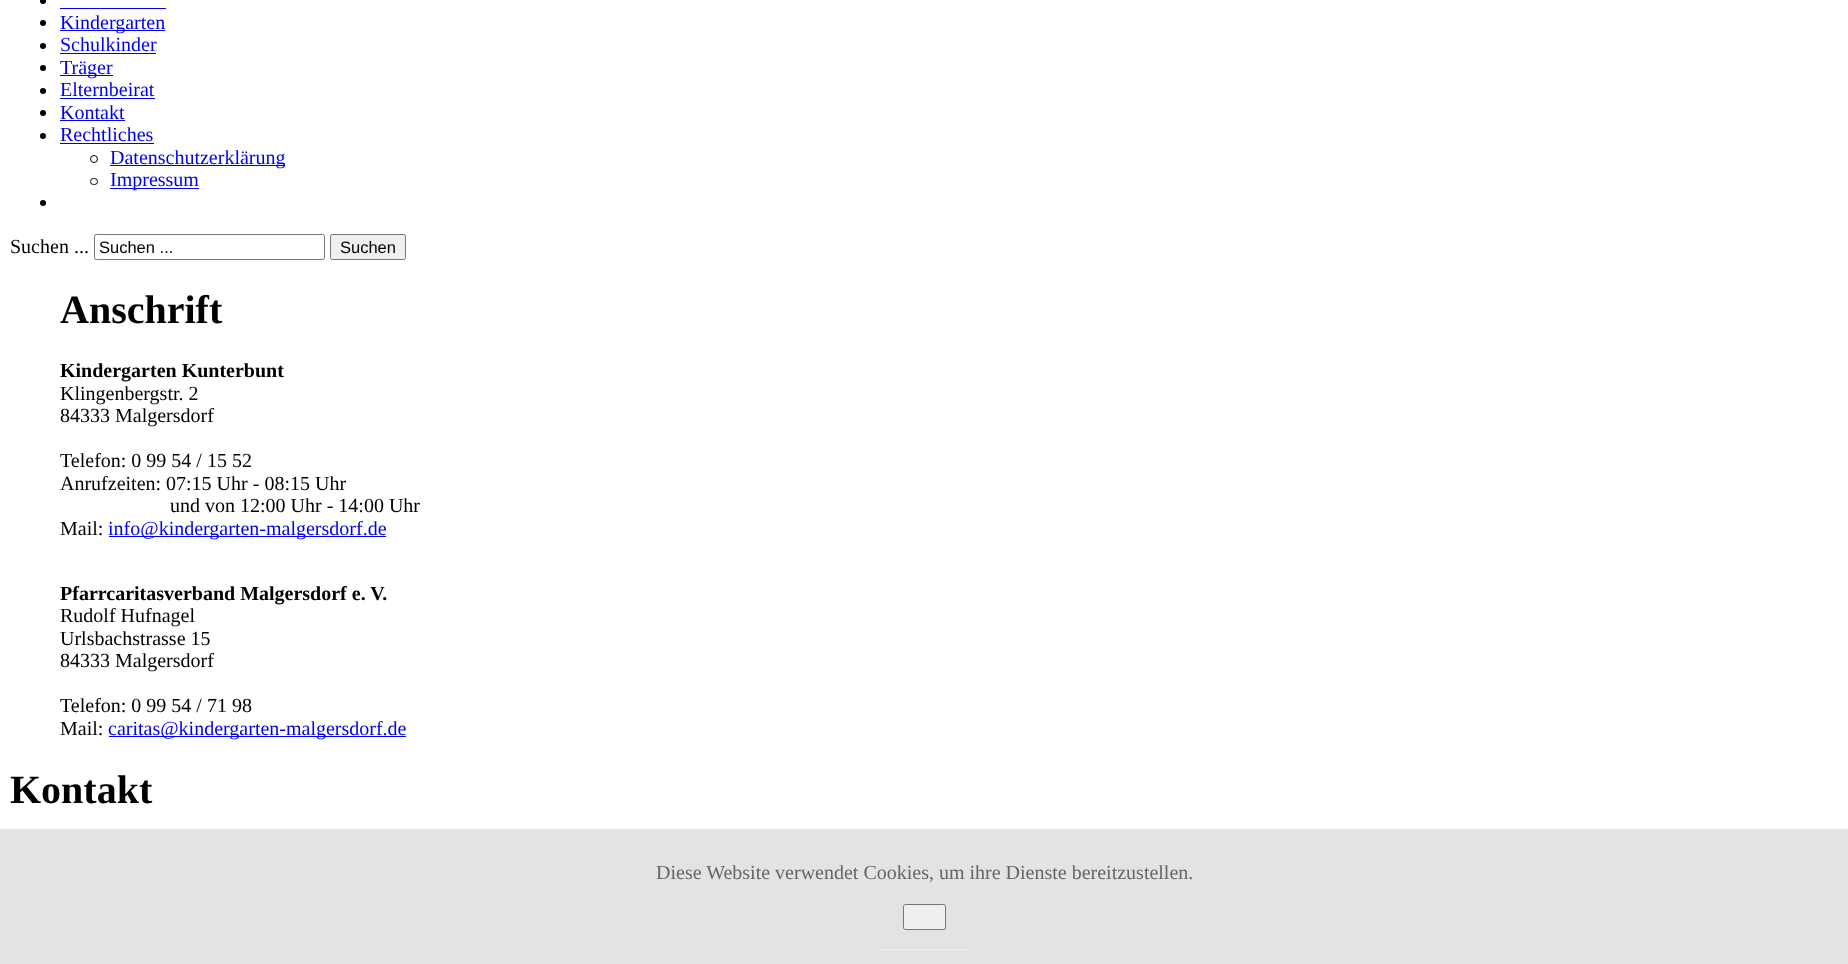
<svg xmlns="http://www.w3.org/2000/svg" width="1848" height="964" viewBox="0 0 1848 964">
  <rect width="100%" height="100%" fill="#ffffff"/>
  <circle cx="43" cy="1" r="3" fill="#000000"/>
  <rect x="60" y="8" width="106" height="1" fill="#0000ee"/>
  <circle cx="43" cy="23" r="3" fill="#000000"/>
  <rect x="60" y="30" width="105" height="1" fill="#0000ee"/>
  <text x="60" y="29" font-family="Liberation Serif" font-size="20" fill="#0000ee">Kindergarten</text>
  <circle cx="43" cy="46" r="3" fill="#000000"/>
  <text x="60" y="51" font-family="Liberation Serif" font-size="20" fill="#0000ee">Schulkinder</text>
  <rect x="60" y="53" width="96" height="1" fill="#0000ee"/>
  <circle cx="43" cy="68" r="3" fill="#000000"/>
  <rect x="60" y="75" width="53" height="1" fill="#0000ee"/>
  <text x="60" y="74" font-family="Liberation Serif" font-size="20" fill="#0000ee">Träger</text>
  <circle cx="43" cy="91" r="3" fill="#000000"/>
  <text x="60" y="96" font-family="Liberation Serif" font-size="20" fill="#0000ee">Elternbeirat</text>
  <rect x="60" y="98" width="95" height="1" fill="#0000ee"/>
  <circle cx="43" cy="113" r="3" fill="#000000"/>
  <text x="60" y="119" font-family="Liberation Serif" font-size="20" fill="#0000ee">Kontakt</text>
  <rect x="60" y="120" width="65" height="1" fill="#0000ee"/>
  <circle cx="43" cy="136" r="3" fill="#000000"/>
  <text x="60" y="141" font-family="Liberation Serif" font-size="20" fill="#0000ee">Rechtliches</text>
  <rect x="60" y="143" width="94" height="1" fill="#0000ee"/>
  <circle cx="94" cy="159" r="3.5" fill="none" stroke="#000000"/>
  <rect x="110" y="165" width="175" height="1" fill="#0000ee"/>
  <text x="110" y="164" font-family="Liberation Serif" font-size="20" fill="#0000ee">Datenschutzerklärung</text>
  <rect x="90.5" y="178.5" width="7" height="6" rx="3" fill="none" stroke="#000000"/>
  <rect x="110" y="188" width="89" height="1" fill="#0000ee"/>
  <text x="110" y="186" font-family="Liberation Serif" font-size="20" fill="#0000ee">Impressum</text>
  <circle cx="43" cy="203" r="3" fill="#000000"/>
  <text x="10" y="253" font-family="Liberation Serif" font-size="20" fill="#000000">Suchen ...</text>
  <rect x="94.5" y="234.5" width="230" height="25" rx="2" fill="none" stroke="#767676"/>
  <text x="99" y="253" font-family="Liberation Sans" font-size="16.5" fill="#000000">Suchen ...</text>
  <rect x="330.5" y="234.5" width="75" height="25" rx="2" fill="#efefef" stroke="#767676"/>
  <text x="340" y="253" font-family="Liberation Sans" font-size="16.5" fill="#000000">Suchen</text>
  <text x="60" y="323" font-family="Liberation Serif" font-size="40" font-weight="bold" fill="#000000">Anschrift</text>
  <text x="60" y="377" font-family="Liberation Serif" font-size="20" font-weight="bold" fill="#000000">Kindergarten Kunterbunt</text>
  <text x="60" y="400" font-family="Liberation Serif" font-size="20" fill="#000000">Klingenbergstr. 2</text>
  <text x="60" y="422" font-family="Liberation Serif" font-size="20" fill="#000000">84333 Malgersdorf</text>
  <text x="60" y="467" font-family="Liberation Serif" font-size="20" fill="#000000">Telefon: 0 99 54 / 15 52</text>
  <text x="60" y="490" font-family="Liberation Serif" font-size="20" fill="#000000">Anrufzeiten: 07:15 Uhr - 08:15 Uhr</text>
  <text x="170" y="512" font-family="Liberation Serif" font-size="20" fill="#000000">und von 12:00 Uhr - 14:00 Uhr</text>
  <text x="60" y="535" font-family="Liberation Serif" font-size="20" fill="#000000">Mail:</text>
  <rect x="109" y="536" width="277" height="1" fill="#0000ee"/>
  <text x="108" y="535" font-family="Liberation Serif" font-size="20" fill="#0000ee">info@kindergarten-malgersdorf.de</text>
  <text x="60" y="600" font-family="Liberation Serif" font-size="20" font-weight="bold" fill="#000000">Pfarrcaritasverband Malgersdorf e. V.</text>
  <text x="60" y="622" font-family="Liberation Serif" font-size="20" fill="#000000">Rudolf Hufnagel</text>
  <text x="60" y="645" font-family="Liberation Serif" font-size="20" fill="#000000">Urlsbachstrasse 15</text>
  <text x="60" y="667" font-family="Liberation Serif" font-size="20" fill="#000000">84333 Malgersdorf</text>
  <text x="60" y="712" font-family="Liberation Serif" font-size="20" fill="#000000">Telefon: 0 99 54 / 71 98</text>
  <text x="60" y="735" font-family="Liberation Serif" font-size="20" fill="#000000">Mail:</text>
  <rect x="109" y="736" width="297" height="1" fill="#0000ee"/>
  <text x="108" y="735" font-family="Liberation Serif" font-size="20" fill="#0000ee">caritas@kindergarten-malgersdorf.de</text>
  <text x="10" y="803" font-family="Liberation Serif" font-size="40" font-weight="bold" fill="#000000">Kontakt</text>
  <rect x="0" y="829" width="1848" height="135" fill="#e3e3e3"/>
  <text x="656" y="879" font-family="Liberation Serif" font-size="20" fill="#666666">Diese Website verwendet Cookies, um ihre Dienste bereitzustellen.</text>
  <rect x="903.5" y="904.5" width="42" height="25" rx="2" fill="#efefef" stroke="#767676"/>
  <rect x="881" y="949" width="87" height="1" fill="#eeeeee"/>
</svg>
